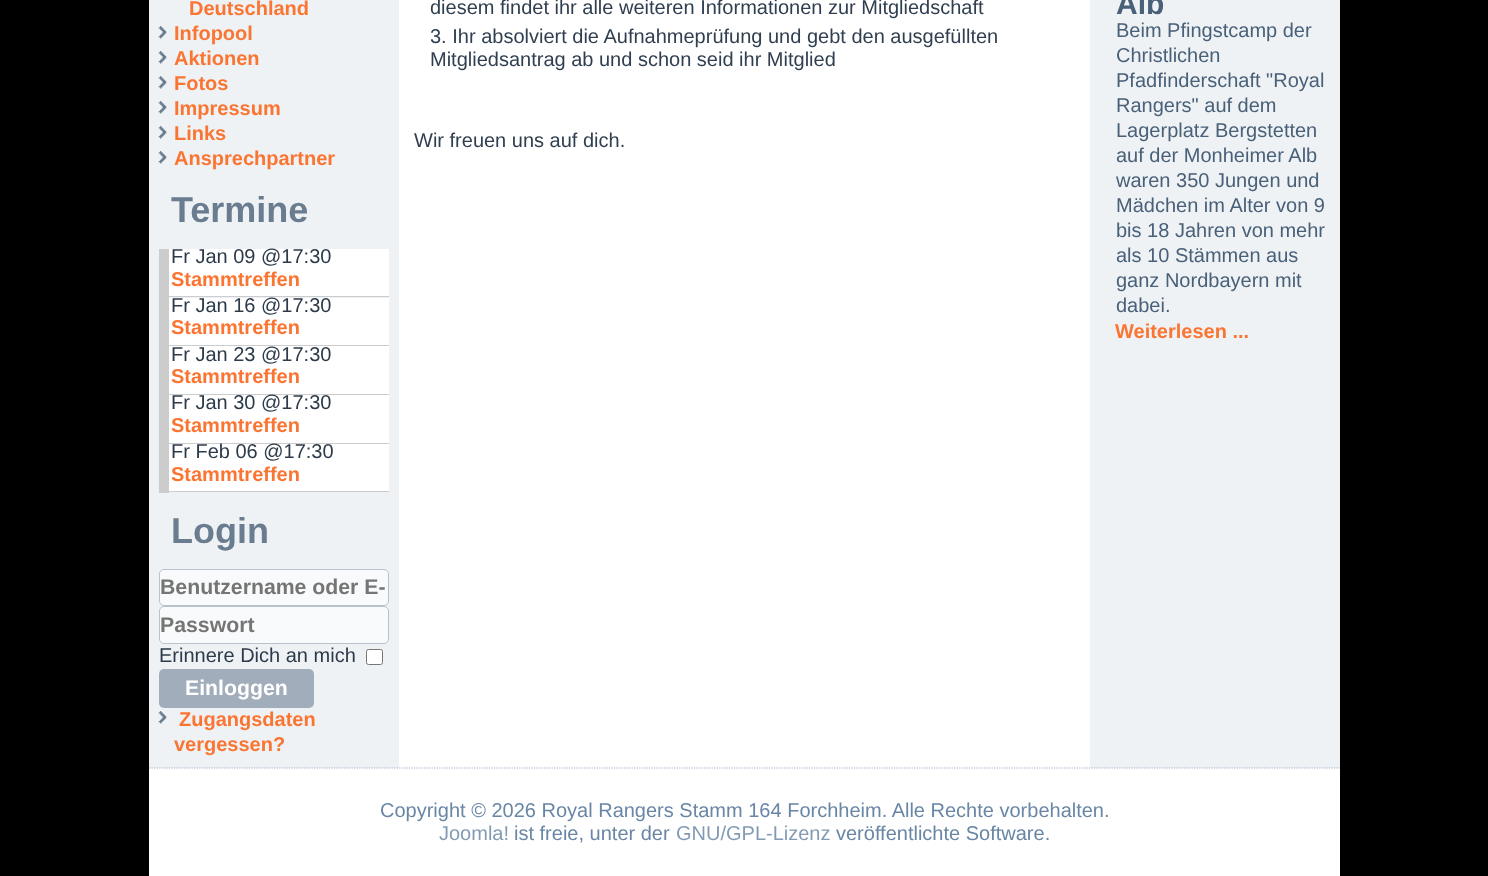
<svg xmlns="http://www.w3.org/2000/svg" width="1488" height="876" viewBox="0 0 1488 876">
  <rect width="100%" height="100%" fill="#000000"/>
  <rect x="149" y="0" width="1191" height="876" fill="#ffffff"/>
  <rect x="149" y="0" width="250" height="768" fill="#eff2f5"/>
  <text x="189" y="15" font-family="Liberation Sans" font-size="20" font-weight="bold" fill="#fb7532">Deutschland</text>
  <image x="158" y="26" width="9" height="13" href="img1.png"/>
  <text x="174" y="40" font-family="Liberation Sans" font-size="20" font-weight="bold" fill="#fb7532">Infopool</text>
  <image x="158" y="51" width="9" height="13" href="img1.png"/>
  <text x="174" y="65" font-family="Liberation Sans" font-size="20" font-weight="bold" fill="#fb7532">Aktionen</text>
  <image x="158" y="76" width="9" height="13" href="img1.png"/>
  <text x="174" y="90" font-family="Liberation Sans" font-size="20" font-weight="bold" fill="#fb7532">Fotos</text>
  <image x="158" y="101" width="9" height="13" href="img1.png"/>
  <text x="174" y="115" font-family="Liberation Sans" font-size="20" font-weight="bold" fill="#fb7532">Impressum</text>
  <image x="158" y="126" width="9" height="13" href="img1.png"/>
  <text x="174" y="140" font-family="Liberation Sans" font-size="20" font-weight="bold" fill="#fb7532">Links</text>
  <image x="158" y="151" width="9" height="13" href="img1.png"/>
  <text x="174" y="165" font-family="Liberation Sans" font-size="20" font-weight="bold" fill="#fb7532">Ansprechpartner</text>
  <text x="171" y="222" font-family="Liberation Sans" font-size="36" font-weight="bold" fill="#6a7d90">Termine</text>
  <rect x="169" y="249" width="220" height="47" fill="#ffffff"/>
  <rect x="169" y="296" width="220" height="1" fill="#cccccc"/>
  <rect x="159" y="249" width="10" height="244" fill="#cccccc"/>
  <text x="171" y="263" font-family="Liberation Sans" font-size="20" fill="#2c3a49">Fr Jan 09 @17:30</text>
  <text x="171" y="286" font-family="Liberation Sans" font-size="20" font-weight="bold" fill="#fb7532">Stammtreffen</text>
  <rect x="169" y="298" width="220" height="47" fill="#ffffff"/>
  <rect x="169" y="345" width="220" height="1" fill="#cccccc"/>
  <text x="171" y="312" font-family="Liberation Sans" font-size="20" fill="#2c3a49">Fr Jan 16 @17:30</text>
  <text x="171" y="334" font-family="Liberation Sans" font-size="20" font-weight="bold" fill="#fb7532">Stammtreffen</text>
  <rect x="169" y="346" width="220" height="48" fill="#ffffff"/>
  <rect x="169" y="394" width="220" height="1" fill="#cccccc"/>
  <text x="171" y="361" font-family="Liberation Sans" font-size="20" fill="#2c3a49">Fr Jan 23 @17:30</text>
  <text x="171" y="383" font-family="Liberation Sans" font-size="20" font-weight="bold" fill="#fb7532">Stammtreffen</text>
  <rect x="169" y="395" width="220" height="48" fill="#ffffff"/>
  <rect x="169" y="443" width="220" height="1" fill="#cccccc"/>
  <text x="171" y="409" font-family="Liberation Sans" font-size="20" fill="#2c3a49">Fr Jan 30 @17:30</text>
  <text x="171" y="432" font-family="Liberation Sans" font-size="20" font-weight="bold" fill="#fb7532">Stammtreffen</text>
  <rect x="169" y="444" width="220" height="47" fill="#ffffff"/>
  <rect x="169" y="491" width="220" height="1" fill="#cccccc"/>
  <text x="171" y="458" font-family="Liberation Sans" font-size="20" fill="#2c3a49">Fr Feb 06 @17:30</text>
  <text x="171" y="481" font-family="Liberation Sans" font-size="20" font-weight="bold" fill="#fb7532">Stammtreffen</text>
  <text x="171" y="543" font-family="Liberation Sans" font-size="36" font-weight="bold" fill="#6a7d90">Login</text>
  <rect x="159.5" y="569.5" width="229" height="36" rx="4.5" fill="#f9fafb" stroke="#b9c2cb"/>
  <text x="160" y="594" font-family="Liberation Sans" font-size="21.25" font-weight="bold" fill="#757575">Benutzername oder E-</text>
  <rect x="159.5" y="606.5" width="229" height="37" rx="4.5" fill="#f9fafb" stroke="#b9c2cb"/>
  <text x="160" y="632" font-family="Liberation Sans" font-size="21.25" font-weight="bold" fill="#757575">Passwort</text>
  <text x="159" y="662" font-family="Liberation Sans" font-size="20" fill="#2c3a49">Erinnere Dich an mich</text>
  <rect x="366.5" y="649.5" width="16" height="15" rx="2" fill="#ffffff" stroke="#767676"/>
  <rect x="159" y="669" width="155" height="39" rx="5" fill="#a1adba"/>
  <text x="185" y="695" font-family="Liberation Sans" font-size="21.25" font-weight="bold" fill="#ffffff">Einloggen</text>
  <image x="158" y="711" width="9" height="13" href="img1.png"/>
  <text x="179" y="726" font-family="Liberation Sans" font-size="20" font-weight="bold" fill="#fb7532">Zugangsdaten</text>
  <text x="174" y="751" font-family="Liberation Sans" font-size="20" font-weight="bold" fill="#fb7532">vergessen?</text>
  <text x="430" y="14" font-family="Liberation Sans" font-size="20" fill="#303f50">diesem findet ihr alle weiteren Informationen zur Mitgliedschaft</text>
  <text x="430" y="43" font-family="Liberation Sans" font-size="20" fill="#303f50">3. Ihr absolviert die Aufnahmeprüfung und gebt den ausgefüllten</text>
  <text x="430" y="66" font-family="Liberation Sans" font-size="20" fill="#303f50">Mitgliedsantrag ab und schon seid ihr Mitglied</text>
  <text x="414" y="147" font-family="Liberation Sans" font-size="20" fill="#303f50">Wir freuen uns auf dich.</text>
  <rect x="1090" y="0" width="250" height="768" fill="#eff2f5"/>
  <text x="1116" y="14" font-family="Liberation Sans" font-size="30" font-weight="bold" fill="#496079">Alb</text>
  <text x="1116" y="37" font-family="Liberation Sans" font-size="20" fill="#496079">Beim Pfingstcamp der</text>
  <text x="1116" y="62" font-family="Liberation Sans" font-size="20" fill="#496079">Christlichen</text>
  <text x="1116" y="87" font-family="Liberation Sans" font-size="20" fill="#496079">Pfadfinderschaft "Royal</text>
  <text x="1116" y="112" font-family="Liberation Sans" font-size="20" fill="#496079">Rangers" auf dem</text>
  <text x="1116" y="137" font-family="Liberation Sans" font-size="20" fill="#496079">Lagerplatz Bergstetten</text>
  <text x="1116" y="162" font-family="Liberation Sans" font-size="20" fill="#496079">auf der Monheimer Alb</text>
  <text x="1116" y="187" font-family="Liberation Sans" font-size="20" fill="#496079">waren 350 Jungen und</text>
  <text x="1116" y="212" font-family="Liberation Sans" font-size="20" fill="#496079">Mädchen im Alter von 9</text>
  <text x="1116" y="237" font-family="Liberation Sans" font-size="20" fill="#496079">bis 18 Jahren von mehr</text>
  <text x="1116" y="262" font-family="Liberation Sans" font-size="20" fill="#496079">als 10 Stämmen aus</text>
  <text x="1116" y="287" font-family="Liberation Sans" font-size="20" fill="#496079">ganz Nordbayern mit</text>
  <text x="1116" y="312" font-family="Liberation Sans" font-size="20" fill="#496079">dabei.</text>
  <text x="1115" y="338" font-family="Liberation Sans" font-size="20" font-weight="bold" fill="#fb7532">Weiterlesen ...</text>
  <path d="M149 768H1340" fill="none" stroke="#9cafc4" stroke-width="1.2" stroke-dasharray="1.25 1.25"/>
  <text x="380" y="817" font-family="Liberation Sans" font-size="20" fill="#6986a5">Copyright © 2026 Royal Rangers Stamm 164 Forchheim. Alle Rechte vorbehalten.</text>
  <text x="439" y="840" font-family="Liberation Sans" font-size="20" fill="#839bb4">Joomla!</text>
  <text x="514" y="840" font-family="Liberation Sans" font-size="20" fill="#6986a5">ist freie, unter der</text>
  <text x="676" y="840" font-family="Liberation Sans" font-size="20" fill="#839bb4">GNU/GPL-Lizenz</text>
  <text x="836" y="840" font-family="Liberation Sans" font-size="20" fill="#6986a5">veröffentlichte Software.</text>
</svg>
